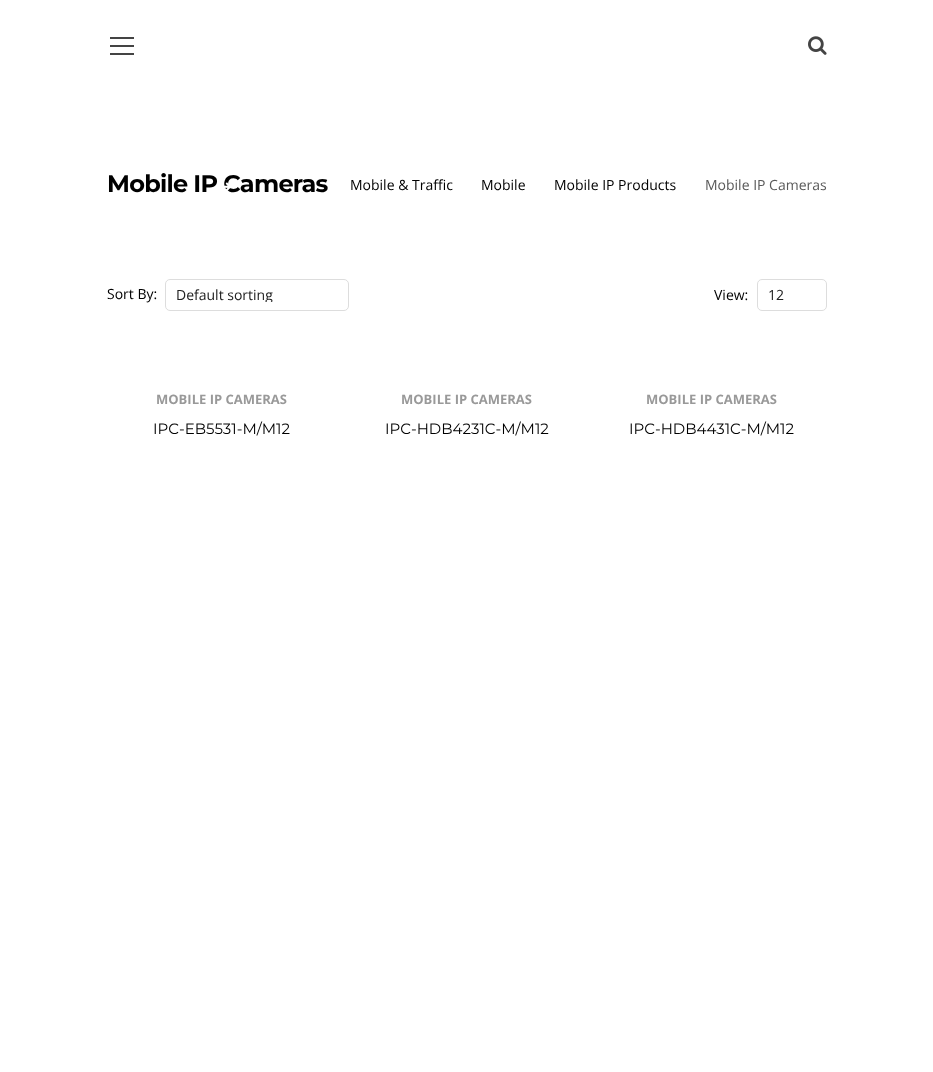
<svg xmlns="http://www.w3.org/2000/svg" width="933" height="1072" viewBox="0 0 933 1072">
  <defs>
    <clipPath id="clip1"><rect x="176" y="288" width="162" height="14"/></clipPath>
  </defs>
  <rect width="100%" height="100%" fill="#ffffff"/>
  <rect x="110" y="37" width="24" height="2" fill="#444444"/>
  <rect x="110" y="45" width="24" height="2" fill="#444444"/>
  <rect x="110" y="53" width="24" height="2" fill="#444444"/>
  <image x="808" y="36" width="19" height="19" href="img1.png"/>
  <text x="107" y="192" font-family="Montserrat" font-size="24" font-weight="bold" letter-spacing="-0.75" fill="#000000">Mobile IP Cameras</text>
  <image x="224" y="182" width="7" height="9" href="img2.png"/>
  <text x="350" y="190" font-family="Open Sans" font-size="14" fill="#000000">Mobile &amp; Traffic</text>
  <text x="481" y="190" font-family="Open Sans" font-size="14" fill="#000000">Mobile</text>
  <text x="554" y="190" font-family="Open Sans" font-size="14" fill="#000000">Mobile IP Products</text>
  <text x="705" y="190" font-family="Open Sans" font-size="14" fill="#595959">Mobile IP Cameras</text>
  <text x="107" y="299" font-family="Open Sans" font-size="14" fill="#000000">Sort By:</text>
  <rect x="165.5" y="279.5" width="183" height="31" rx="4.5" fill="none" stroke="#dddddd"/>
  <g clip-path="url(#clip1)">
    <text x="176" y="300" font-family="Open Sans" font-size="14" fill="#212121">Default sorting</text>
  </g>
  <text x="714" y="300" font-family="Open Sans" font-size="14" fill="#000000">View:</text>
  <rect x="757.5" y="279.5" width="69" height="31" rx="4.5" fill="none" stroke="#dddddd"/>
  <text x="768" y="300" font-family="Open Sans" font-size="14" fill="#212121">12</text>
  <text x="156" y="404" font-family="Open Sans" font-size="13" font-weight="bold" fill="#999999">MOBILE IP CAMERAS</text>
  <text x="153" y="434" font-family="Montserrat" font-size="15" fill="#000000">IPC-EB5531-M/M12</text>
  <text x="401" y="404" font-family="Open Sans" font-size="13" font-weight="bold" fill="#999999">MOBILE IP CAMERAS</text>
  <text x="385" y="434" font-family="Montserrat" font-size="15" fill="#000000">IPC-HDB4231C-M/M12</text>
  <text x="646" y="404" font-family="Open Sans" font-size="13" font-weight="bold" fill="#999999">MOBILE IP CAMERAS</text>
  <text x="629" y="434" font-family="Montserrat" font-size="15" fill="#000000">IPC-HDB4431C-M/M12</text>
</svg>
